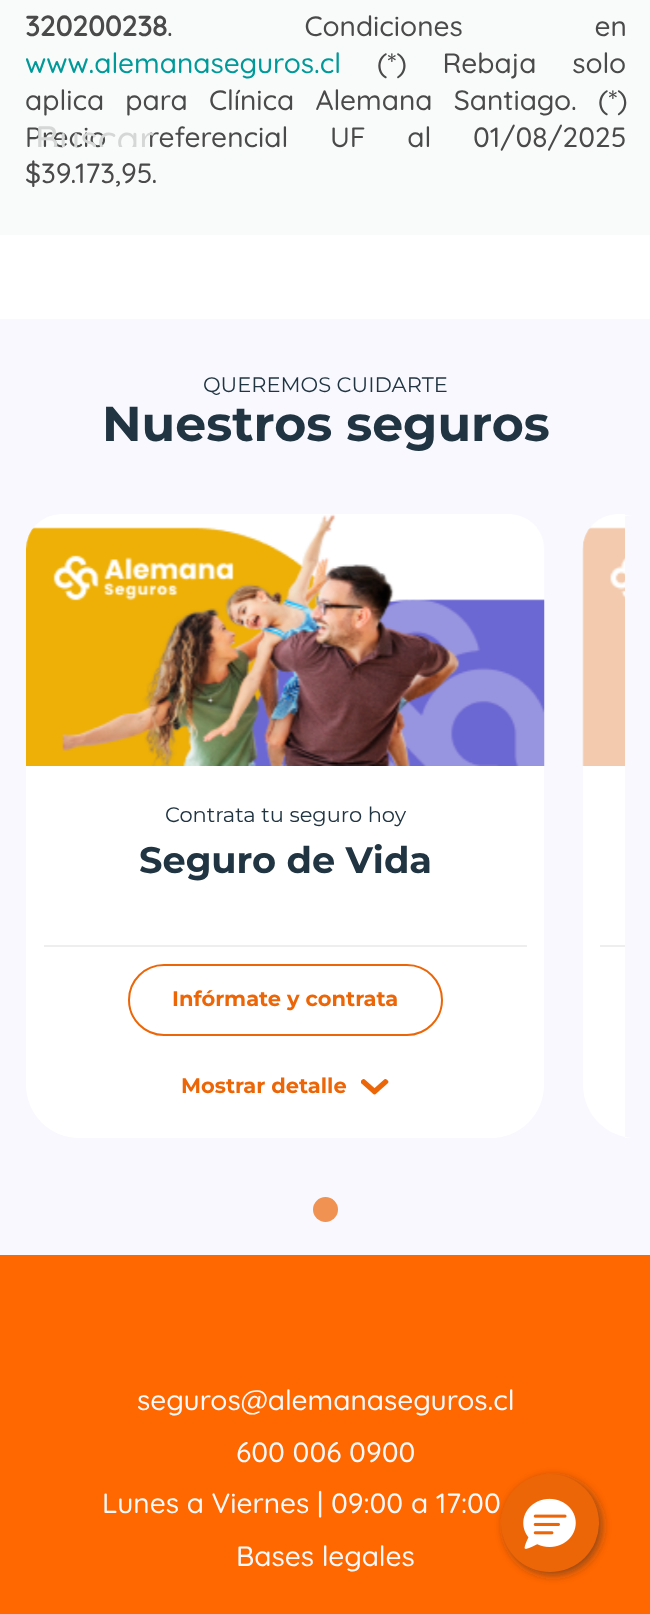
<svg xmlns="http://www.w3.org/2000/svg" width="650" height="1614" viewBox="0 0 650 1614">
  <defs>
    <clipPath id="clip1"><rect x="0" y="77" width="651" height="70"/></clipPath>
    <filter id="blur1" x="-50%" y="-200%" width="200%" height="500%"><feGaussianBlur stdDeviation="4.5"/></filter>
  </defs>
  <rect width="100%" height="100%" fill="#ffffff"/>
  <rect x="0" y="0" width="650" height="235" fill="#f9fafa"/>
  <text x="25" y="36" font-family="Quicksand" font-size="28" font-weight="bold" fill="#4a4a4a">320200238</text>
  <text x="167" y="36" word-spacing="124" font-family="Quicksand" font-size="28" font-weight="300" fill="#4a4a4a">. Condiciones en</text>
  <text x="25" y="73" font-family="Quicksand" font-size="28" font-weight="300" fill="#009999">www.alemanaseguros.cl</text>
  <text x="377" y="73" word-spacing="28" font-family="Quicksand" font-size="28" font-weight="300" fill="#4a4a4a">(*) Rebaja solo</text>
  <text x="25" y="110" word-spacing="13.5" font-family="Quicksand" font-size="28" font-weight="300" fill="#4a4a4a">aplica para Clínica Alemana Santiago. (*)</text>
  <text x="25" y="147" word-spacing="34" font-family="Quicksand" font-size="28" font-weight="300" fill="#4a4a4a">Precio referencial UF al 01/08/2025</text>
  <text x="25" y="183" font-family="Quicksand" font-size="28" font-weight="300" fill="#4a4a4a">$39.173,95.</text>
  <g clip-path="url(#clip1)">
    <text x="35" y="152" font-family="Quicksand" font-size="36.75" font-weight="300" fill="#d5d6d6">Buscar</text>
  </g>
  <rect x="0" y="319" width="650" height="936" fill="#f8f8fe"/>
  <text x="203" y="392" font-family="Montserrat" font-size="21" fill="#203442">QUEREMOS CUIDARTE</text>
  <text x="102" y="441" font-family="Montserrat" font-size="49" font-weight="bold" fill="#203442">Nuestros seguros</text>
  <rect x="26" y="515" width="518" height="623" rx="53" fill="#ffffff"/>
  <image x="26" y="514" width="519" height="252" href="img1.png"/>
  <text x="165" y="822" font-family="Montserrat" font-size="21" fill="#203442">Contrata tu seguro hoy</text>
  <text x="139" y="873" font-family="Montserrat" font-size="36.75" font-weight="bold" fill="#203442">Seguro de Vida</text>
  <rect x="44" y="945" width="483" height="2" fill="#eeeeee"/>
  <rect x="129" y="965" width="313" height="70" rx="35" fill="none" stroke="#ec6608" stroke-width="2"/>
  <text x="172" y="1006" font-family="Montserrat" font-size="21" font-weight="bold" fill="#ec6608">Infórmate y contrata</text>
  <text x="181" y="1093" font-family="Montserrat" font-size="21" font-weight="bold" fill="#ec6608">Mostrar detalle</text>
  <image x="361" y="1079" width="28" height="16" href="img2.png"/>
  <path d="M636 515H625V1138H636C606.5 1138 583 1114.5 583 1085V568C583 538.5 606.5 515 636 515Z" fill="#ffffff"/>
  <image x="582" y="514" width="43" height="252" href="img3.png"/>
  <rect x="600" y="945" width="25" height="2" fill="#eeeeee"/>
  <circle cx="325.5" cy="1209.5" r="12.5" fill="#f09252"/>
  <rect x="0" y="1255" width="650" height="359" fill="#ff6700"/>
  <text x="137" y="1410" font-family="Quicksand" font-size="28" font-weight="300" fill="#f8f9fa">seguros@alemanaseguros.cl</text>
  <text x="236" y="1462" font-family="Quicksand" font-size="28" font-weight="300" fill="#f8f9fa">600 006 0900</text>
  <text x="102" y="1513" font-family="Quicksand" font-size="28" font-weight="300" fill="#f8f9fa">Lunes a Viernes | 09:00 a 17:00</text>
  <text x="236" y="1566" font-family="Quicksand" font-size="28" font-weight="300" fill="#f8f9fa">Bases legales</text>
  <rect x="504" y="1477" width="98" height="98" rx="49" fill="#2d2d2d" fill-opacity="0.5" filter="url(#blur1)"/>
  <circle cx="550" cy="1523" r="49" fill="#ec6608"/>
  <image x="523" y="1498" width="53" height="51" href="img4.png"/>
</svg>
